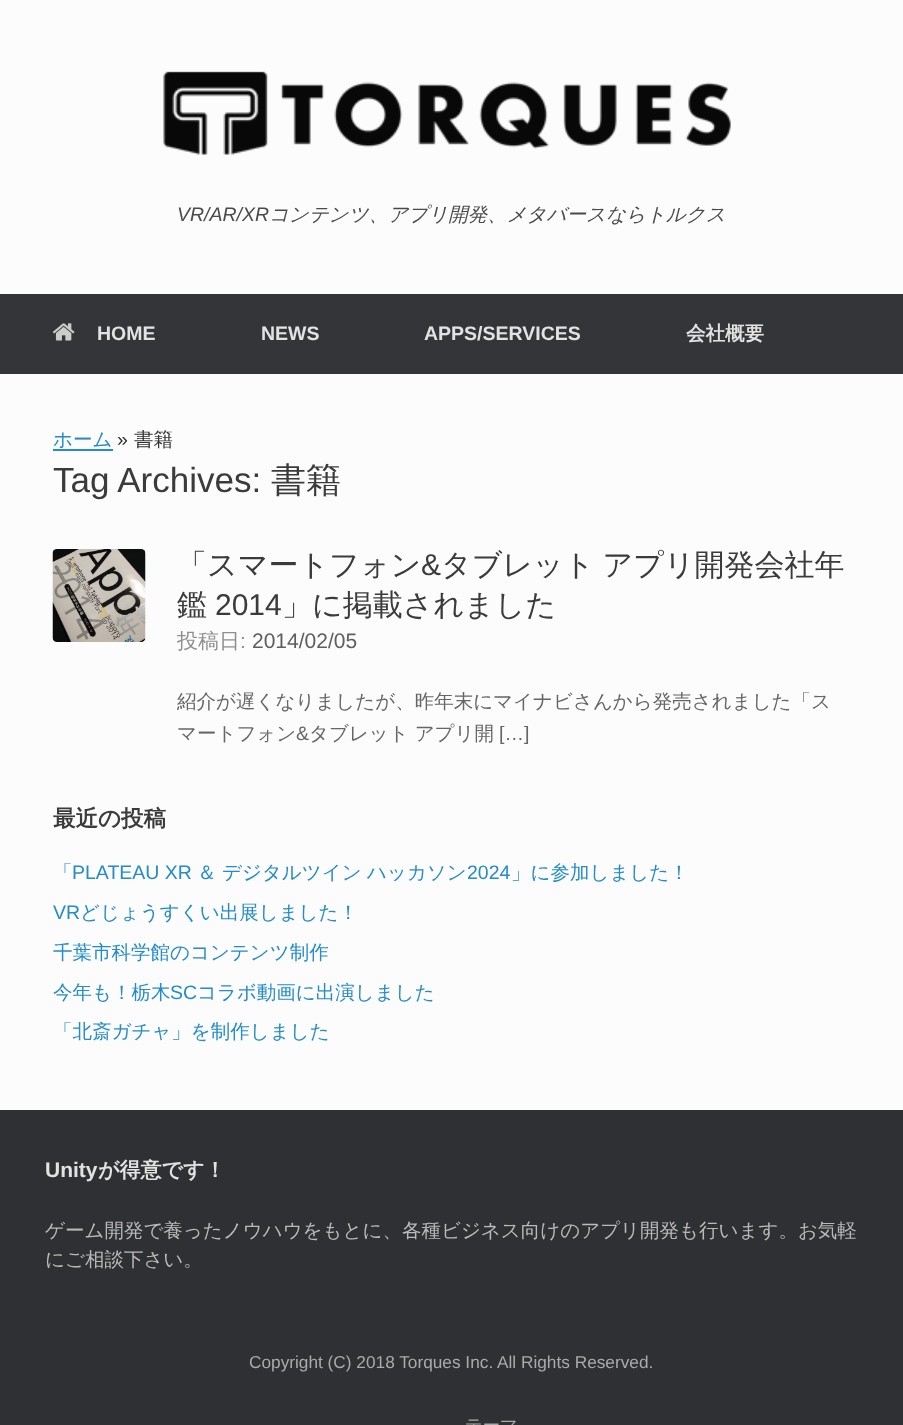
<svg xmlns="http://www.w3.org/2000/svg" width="903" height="1425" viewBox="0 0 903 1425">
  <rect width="100%" height="100%" fill="#2f3033"/>
  <rect x="0" y="0" width="903" height="294" fill="#fcfcfc"/>
  <image x="163" y="71" width="568" height="84" href="img1.png"/>
  <text x="177" y="221" font-family="Liberation Sans" font-size="19.5" font-style="italic" fill="#4b4b4b">VR/AR/XR</text>
  <text x="269" y="221" font-family="WenQuanYi Zen Hei" font-size="19.5" font-weight="500" font-style="italic" fill="#4b4b4b">コンテンツ、アプリ開発、メタバースならトルクス</text>
  <rect x="0" y="294" width="903" height="80" fill="#343538"/>
  <image x="52" y="323" width="23" height="18" href="img2.png"/>
  <text x="97" y="340" font-family="Liberation Sans" font-size="19.5" font-weight="bold" fill="#e2e2e2">HOME</text>
  <text x="261" y="340" font-family="Liberation Sans" font-size="19.5" font-weight="bold" fill="#e2e2e2">NEWS</text>
  <text x="424" y="340" font-family="Liberation Sans" font-size="19.5" font-weight="bold" fill="#e2e2e2">APPS/SERVICES</text>
  <text x="686" y="340" font-family="WenQuanYi Zen Hei" font-size="19.5" font-weight="bold" fill="#e2e2e2">会社概要</text>
  <rect x="0" y="374" width="903" height="736" fill="#fcfcfc"/>
  <text x="53" y="446" font-family="WenQuanYi Zen Hei" font-size="19.5" font-weight="500" fill="#248cc8">ホーム</text>
  <rect x="53" y="449" width="60" height="2" fill="#248cc8"/>
  <text x="117" y="446" font-family="Liberation Sans" font-size="19.5" fill="#333333">»</text>
  <text x="134" y="446" font-family="WenQuanYi Zen Hei" font-size="19.5" font-weight="500" fill="#333333">書籍</text>
  <text x="53" y="492" font-family="Liberation Sans" font-size="35" fill="#3b3b3b">Tag Archives:</text>
  <text x="271" y="492" font-family="WenQuanYi Zen Hei" font-size="35" font-weight="500" fill="#3b3b3b">書籍</text>
  <image x="52" y="549" width="94" height="93" href="img3.png"/>
  <text x="177" y="575" font-family="WenQuanYi Zen Hei" font-size="30" font-weight="500" fill="#3b3b3b">「スマートフォン</text>
  <text x="421" y="575" font-family="Liberation Sans" font-size="30" fill="#3b3b3b">&amp;</text>
  <text x="441" y="575" word-spacing="-1" font-family="WenQuanYi Zen Hei" font-size="30" font-weight="500" fill="#3b3b3b">タブレット アプリ開発会社年</text>
  <text x="177" y="615" font-family="WenQuanYi Zen Hei" font-size="30" font-weight="500" fill="#3b3b3b">鑑</text>
  <text x="215" y="615" font-family="Liberation Sans" font-size="30" fill="#3b3b3b">2014</text>
  <text x="282" y="615" font-family="WenQuanYi Zen Hei" font-size="30" font-weight="500" fill="#3b3b3b">」に掲載されました</text>
  <text x="177" y="648" font-family="Noto Sans" font-size="21" fill="#8f8f8f">投</text>
  <text x="198" y="648" font-family="WenQuanYi Zen Hei" font-size="21" font-weight="500" fill="#8f8f8f">稿日</text>
  <text x="240" y="648" font-family="Liberation Sans" font-size="21" fill="#8f8f8f">:</text>
  <text x="252" y="648" font-family="Liberation Sans" font-size="21" fill="#5e5e5e">2014/02/05</text>
  <text x="177" y="708" font-family="WenQuanYi Zen Hei" font-size="19.5" font-weight="500" fill="#666666">紹介が遅くなりましたが、昨年末にマイナビさんから発売されました「ス</text>
  <text x="177" y="740" font-family="WenQuanYi Zen Hei" font-size="19.5" font-weight="500" fill="#666666">マートフォン</text>
  <text x="296" y="740" font-family="Liberation Sans" font-size="19.5" fill="#666666">&amp;</text>
  <text x="309" y="740" font-family="WenQuanYi Zen Hei" font-size="19.5" font-weight="500" fill="#666666">タブレット アプリ開</text>
  <text x="499" y="740" font-family="Liberation Sans" font-size="19.5" fill="#666666">[…]</text>
  <text x="53" y="826" font-family="WenQuanYi Zen Hei" font-size="22.5" font-weight="bold" fill="#3b3b3b">最近の投稿</text>
  <text x="53" y="879" font-family="WenQuanYi Zen Hei" font-size="19.5" font-weight="500" fill="#248cc8">「</text>
  <text x="72" y="879" font-family="Liberation Sans" font-size="19.5" fill="#248cc8">PLATEAU XR</text>
  <text x="197" y="879" font-family="WenQuanYi Zen Hei" font-size="19.5" font-weight="500" fill="#248cc8">＆</text>
  <text x="222" y="879" font-family="WenQuanYi Zen Hei" font-size="19.5" font-weight="500" fill="#248cc8">デジタルツイン</text>
  <text x="367" y="879" font-family="WenQuanYi Zen Hei" font-size="19.5" font-weight="500" fill="#248cc8">ハッカソン</text>
  <text x="467" y="879" font-family="Liberation Sans" font-size="19.5" fill="#248cc8">2024</text>
  <text x="511" y="879" font-family="WenQuanYi Zen Hei" font-size="19.5" font-weight="500" fill="#248cc8">」に参加しました！</text>
  <text x="53" y="919" font-family="Liberation Sans" font-size="19.5" fill="#248cc8">VR</text>
  <text x="80" y="919" font-family="WenQuanYi Zen Hei" font-size="19.5" font-weight="500" fill="#248cc8">どじょうすくい出展しました！</text>
  <text x="53" y="959" font-family="WenQuanYi Zen Hei" font-size="19.5" font-weight="500" fill="#248cc8">千葉市科学館のコンテンツ制作</text>
  <text x="53" y="999" font-family="WenQuanYi Zen Hei" font-size="19.5" font-weight="500" fill="#248cc8">今年も！栃木</text>
  <text x="170" y="999" font-family="Liberation Sans" font-size="19.5" fill="#248cc8">SC</text>
  <text x="197" y="999" font-family="WenQuanYi Zen Hei" font-size="19.5" font-weight="500" fill="#248cc8">コラボ動画に出演しました</text>
  <text x="53" y="1038" font-family="WenQuanYi Zen Hei" font-size="19.5" font-weight="500" fill="#248cc8">「北斎ガチャ」を制作しました</text>
  <text x="45" y="1177" font-family="Liberation Sans" font-size="21" font-weight="bold" fill="#e2e2e2">Unity</text>
  <text x="98" y="1177" font-family="WenQuanYi Zen Hei" font-size="21" font-weight="bold" fill="#e2e2e2">が得意です！</text>
  <text x="45" y="1237" font-family="WenQuanYi Zen Hei" font-size="19.5" font-weight="500" fill="#b9b9b9">ゲーム開発で養ったノウハウをもとに、各種ビジネス向けのアプリ開発も行います。お気軽</text>
  <text x="45" y="1266" font-family="WenQuanYi Zen Hei" font-size="19.5" font-weight="500" fill="#b9b9b9">にご相談下さい。</text>
  <text x="249" y="1368" font-family="Liberation Sans" font-size="17.25" fill="#aaaaaa">Copyright (C) 2018 Torques Inc. All Rights Reserved.</text>
  <text x="465" y="1431" font-family="WenQuanYi Zen Hei" font-size="17.25" font-weight="500" fill="#aaaaaa">テーマ</text>
</svg>
